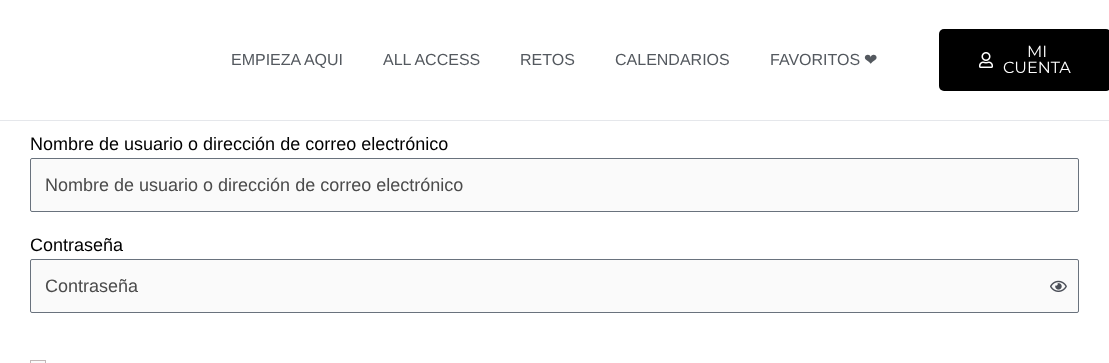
<svg xmlns="http://www.w3.org/2000/svg" width="1109" height="363" viewBox="0 0 1109 363">
  <rect width="100%" height="100%" fill="#ffffff"/>
  <rect x="0" y="120" width="1109" height="1" fill="#e5e7eb"/>
  <text x="231" y="65" font-family="Liberation Sans" font-size="16" fill="#54595f">EMPIEZA AQUI</text>
  <text x="383" y="65" font-family="Liberation Sans" font-size="16" fill="#54595f">ALL ACCESS</text>
  <text x="520" y="65" font-family="Liberation Sans" font-size="16" fill="#54595f">RETOS</text>
  <text x="615" y="65" font-family="Liberation Sans" font-size="16" fill="#54595f">CALENDARIOS</text>
  <text x="770" y="65" font-family="Liberation Sans" font-size="16" fill="#54595f">FAVORITOS</text>
  <text x="864" y="65" font-family="DejaVu Sans" font-size="16" fill="#54595f">❤</text>
  <rect x="939" y="29" width="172" height="62" rx="5" fill="#000000"/>
  <image x="979" y="52" width="14" height="16" href="img1.png"/>
  <text x="1027" y="57" font-family="Montserrat" font-size="16" fill="#ffffff">MI</text>
  <text x="1003" y="73" font-family="Montserrat" font-size="16" fill="#ffffff">CUENTA</text>
  <text x="30" y="150" font-family="Liberation Sans" font-size="18" fill="#000000">Nombre de usuario o dirección de correo electrónico</text>
  <rect x="30.5" y="158.5" width="1048" height="53" rx="1.5" fill="#fafafa" stroke="#69727d"/>
  <text x="45" y="191" font-family="Liberation Sans" font-size="18" fill="#4b4b4b">Nombre de usuario o dirección de correo electrónico</text>
  <text x="30" y="251" font-family="Liberation Sans" font-size="18" fill="#000000">Contraseña</text>
  <rect x="30.5" y="259.5" width="1048" height="53" rx="1.5" fill="#fafafa" stroke="#69727d"/>
  <text x="45" y="292" font-family="Liberation Sans" font-size="18" fill="#4b4b4b">Contraseña</text>
  <image x="1050" y="280" width="17" height="12" href="img2.png"/>
  <rect x="30.5" y="360.5" width="15" height="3" fill="#fafafa" stroke="#c1b7b7"/>
</svg>
